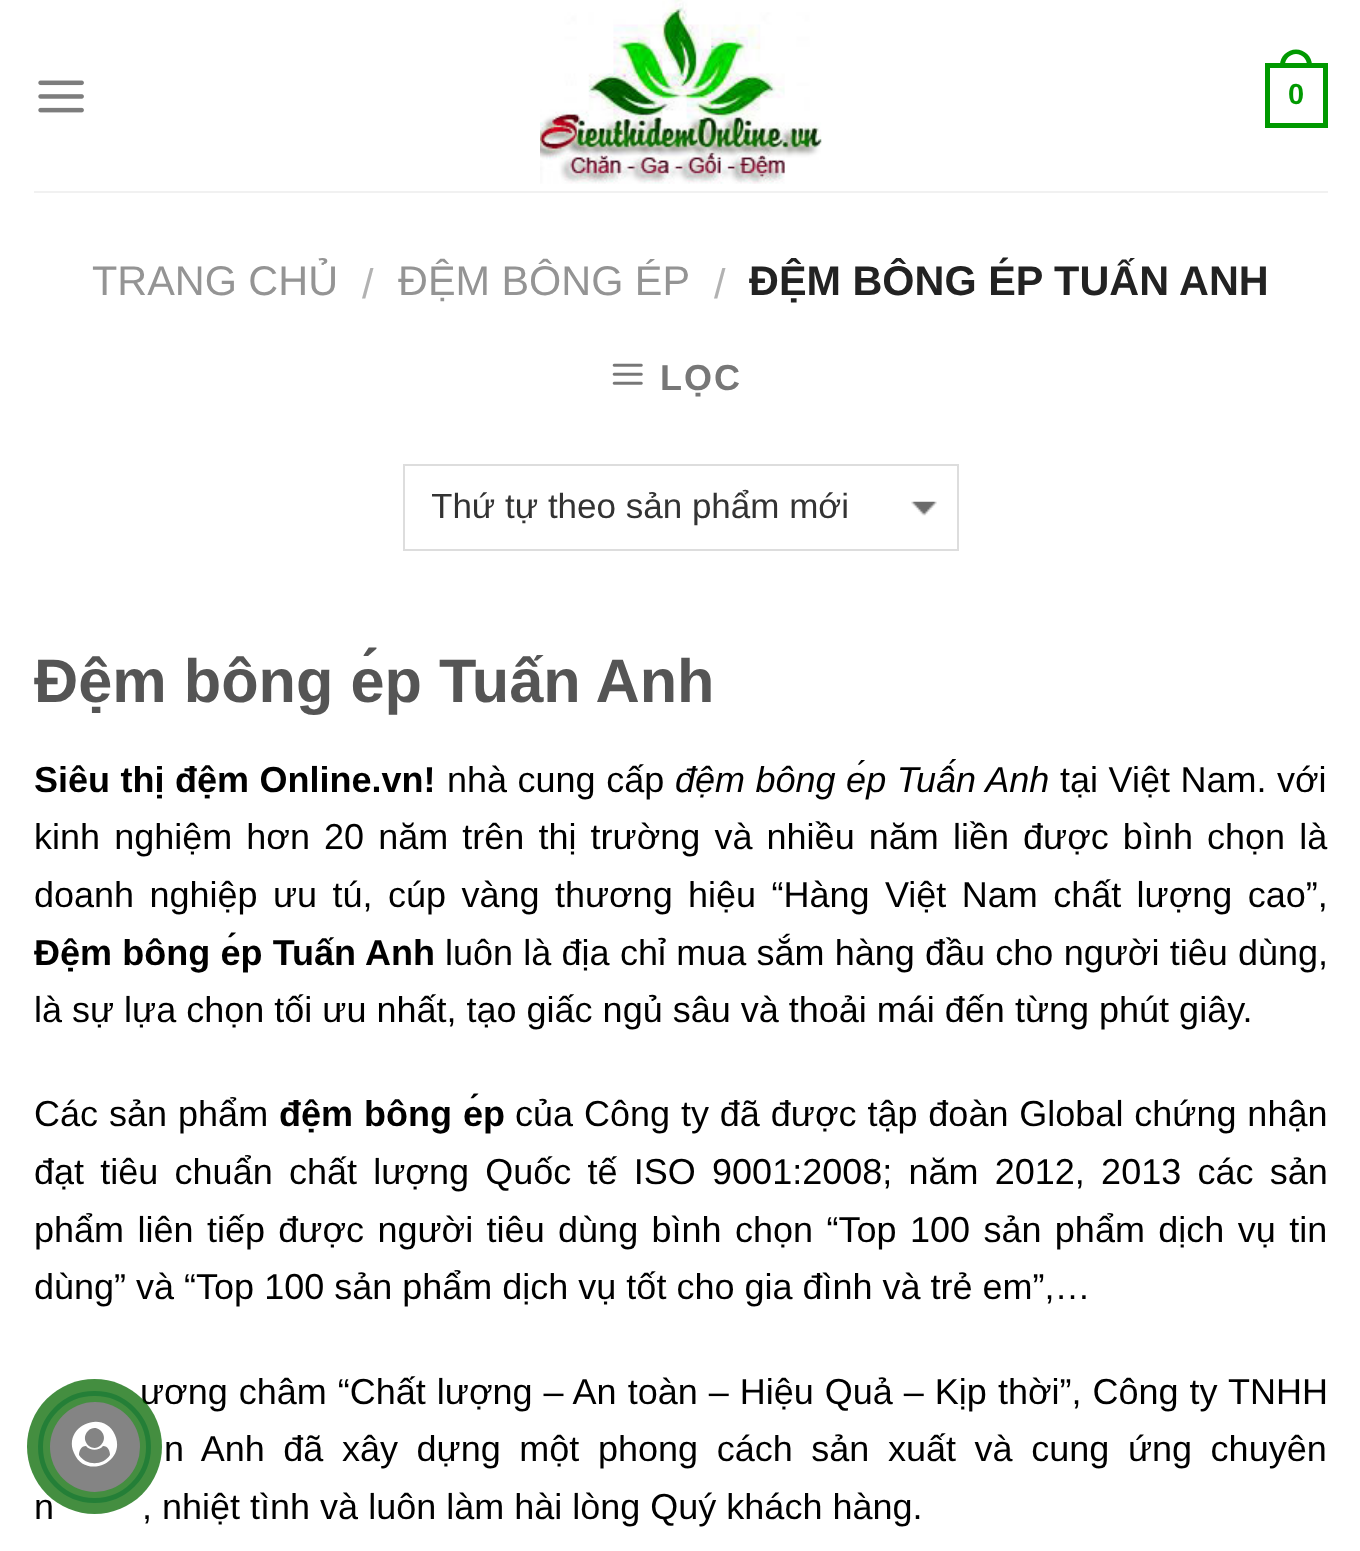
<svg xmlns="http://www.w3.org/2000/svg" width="1360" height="1551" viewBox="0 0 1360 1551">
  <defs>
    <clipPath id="clip1"><rect x="432" y="479" width="500" height="57"/></clipPath>
  </defs>
  <rect width="100%" height="100%" fill="#ffffff"/>
  <image x="38" y="80" width="46" height="33" href="img1.png"/>
  <image x="540" y="0" width="282" height="184" href="img2.png"/>
  <rect x="1267.5" y="65.5" width="58" height="60" fill="none" stroke="#009900" stroke-width="5"/>
  <path d="M1296 49.5C1304.5 49.5 1312 56.5 1312 65V67.5H1280V65C1280 56.5 1287.5 49.5 1296 49.5ZM1296 54C1302 54 1307 59 1307 65V67.5H1285V65C1285 59 1290 54 1296 54Z" fill="#009900" fill-rule="evenodd"/>
  <text x="1288" y="104" font-family="Liberation Sans" font-size="29" font-weight="bold" fill="#009900">0</text>
  <rect x="34" y="191" width="1294" height="2" fill="#f1f1f1"/>
  <text x="92" y="295" font-family="Liberation Sans" font-size="41.4" fill="#949494">TRANG CHỦ</text>
  <text x="362" y="298" font-family="Liberation Sans" font-size="41.4" fill="#b2b2b2">/</text>
  <text x="398" y="295" font-family="Liberation Sans" font-size="41.4" fill="#949494">ĐỆM BÔNG ÉP</text>
  <text x="714" y="298" font-family="Liberation Sans" font-size="41.4" fill="#b2b2b2">/</text>
  <text x="749" y="295" font-family="Liberation Sans" font-size="41.4" font-weight="bold" fill="#222222">ĐỆM BÔNG ÉP TUẤN ANH</text>
  <image x="612" y="363" width="31" height="22" href="img3.png"/>
  <text x="660" y="390" font-family="Liberation Sans" font-size="36" font-weight="bold" letter-spacing="2" fill="#777777">LỌC</text>
  <image x="911" y="501" width="26" height="15" href="img4.png"/>
  <rect x="404" y="465" width="554" height="85" fill="none" stroke="#dddddd" stroke-width="2"/>
  <g clip-path="url(#clip1)">
    <text x="431" y="518" font-family="Liberation Sans" font-size="35" fill="#333333">Thứ tự theo sản phẩm mới</text>
  </g>
  <text x="34" y="702" font-family="Liberation Sans" font-size="61.25" font-weight="bold" fill="#555555">Đệm bông ép Tuấn Anh</text>
  <text x="34" y="792" word-spacing="0.5" font-family="Liberation Sans" font-size="36" font-weight="bold" fill="#000000">Siêu thị đệm Online.vn!</text>
  <text x="447" y="792" word-spacing="0.5" font-family="Liberation Sans" font-size="36" fill="#000000">nhà cung cấp</text>
  <text x="675" y="792" word-spacing="0.5" font-family="Liberation Sans" font-size="36" font-style="italic" fill="#000000">đệm bông ép Tuấn Anh</text>
  <text x="1060" y="792" word-spacing="0.5" font-family="Liberation Sans" font-size="36" fill="#000000">tại Việt Nam. với</text>
  <text x="34" y="849" word-spacing="4.1" font-family="Liberation Sans" font-size="36" fill="#000000">kinh nghiệm hơn 20 năm trên thị trường và nhiều năm liền được bình chọn là</text>
  <text x="34" y="907" word-spacing="5.4" font-family="Liberation Sans" font-size="36" fill="#000000">doanh nghiệp ưu tú, cúp vàng thương hiệu “Hàng Việt Nam chất lượng cao”,</text>
  <text x="34" y="965" word-spacing="0.25" font-family="Liberation Sans" font-size="36" font-weight="bold" fill="#000000">Đệm bông ép Tuấn Anh</text>
  <text x="445" y="965" word-spacing="0.25" font-family="Liberation Sans" font-size="36" fill="#000000">luôn là địa chỉ mua sắm hàng đầu cho người tiêu dùng,</text>
  <text x="34" y="1022" font-family="Liberation Sans" font-size="36" fill="#000000">là sự lựa chọn tối ưu nhất, tạo giấc ngủ sâu và thoải mái đến từng phút giây.</text>
  <text x="34" y="1126" word-spacing="1" font-family="Liberation Sans" font-size="36" fill="#000000">Các sản phẩm</text>
  <text x="279" y="1126" word-spacing="1" font-family="Liberation Sans" font-size="36" font-weight="bold" fill="#000000">đệm bông ép</text>
  <text x="515" y="1126" word-spacing="0.9" font-family="Liberation Sans" font-size="36" fill="#000000">của Công ty đã được tập đoàn Global chứng nhận</text>
  <text x="34" y="1184" word-spacing="6.25" font-family="Liberation Sans" font-size="36" fill="#000000">đạt tiêu chuẩn chất lượng Quốc tế ISO 9001:2008; năm 2012, 2013 các sản</text>
  <text x="34" y="1242" word-spacing="3.4" font-family="Liberation Sans" font-size="36" fill="#000000">phẩm liên tiếp được người tiêu dùng bình chọn “Top 100 sản phẩm dịch vụ tin</text>
  <text x="34" y="1299" font-family="Liberation Sans" font-size="36" fill="#000000">dùng” và “Top 100 sản phẩm dịch vụ tốt cho gia đình và trẻ em”,…</text>
  <text x="140" y="1404" word-spacing="1" font-family="Liberation Sans" font-size="36" fill="#000000">ương châm “Chất lượng – An toàn – Hiệu Quả – Kịp thời”, Công ty TNHH</text>
  <text x="164" y="1461" word-spacing="8.6" font-family="Liberation Sans" font-size="36" fill="#000000">n Anh đã xây dựng một phong cách sản xuất và cung ứng chuyên</text>
  <text x="34" y="1519" font-family="Liberation Sans" font-size="36" fill="#000000">n</text>
  <text x="142" y="1519" font-family="Liberation Sans" font-size="36" fill="#000000">, nhiệt tình và luôn làm hài lòng Quý khách hàng.</text>
  <rect x="40.5" y="1393.5" width="108" height="107" rx="53.5" fill="none" stroke="#0089b9" stroke-opacity="0.5" stroke-width="5"/>
  <circle cx="94.5" cy="1446.5" r="67.5" fill="#066800" fill-opacity="0.75"/>
  <circle cx="95" cy="1447" r="45" fill="#848484"/>
  <path d="M110 1455C110 1451 108 1446 103 1446C99 1451 90 1451 86 1446C81 1446 79 1451 79 1455C86 1466 103 1466 110 1455ZM101 1445C110 1436 97 1422 88 1431C79 1440 92 1454 101 1445ZM115 1435C127 1463 85 1480 74 1453C62 1426 104 1408 115 1435Z" fill="#ffffff"/>
</svg>
